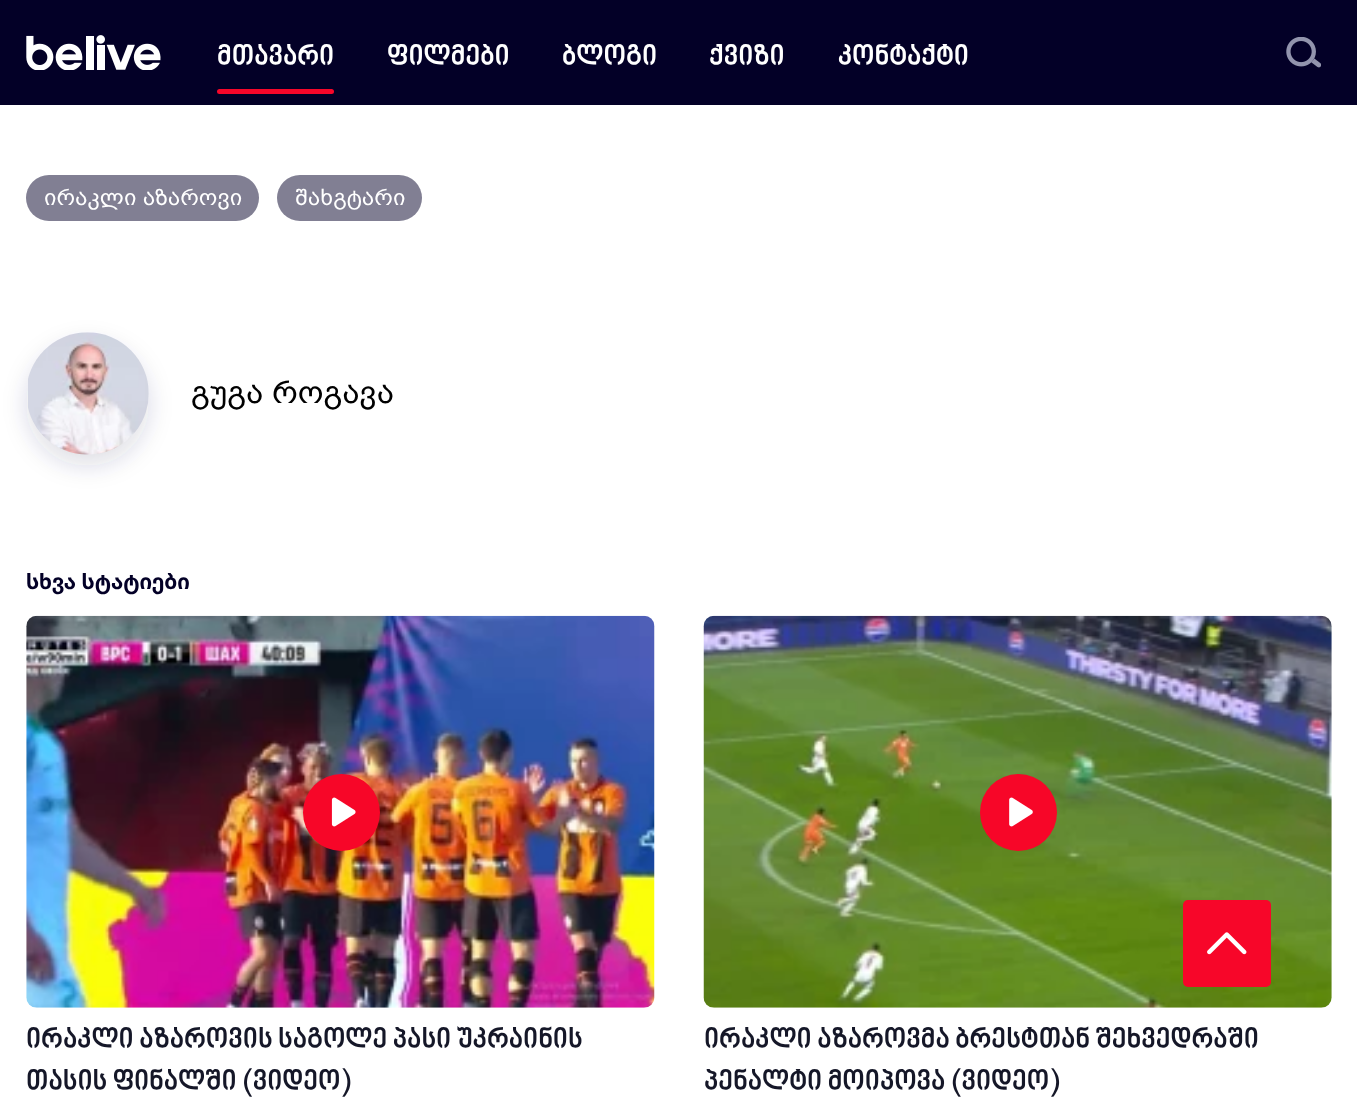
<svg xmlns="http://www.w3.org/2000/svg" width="1357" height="1118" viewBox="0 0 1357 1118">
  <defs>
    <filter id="blur1" x="-50%" y="-200%" width="200%" height="500%"><feGaussianBlur stdDeviation="11.5"/></filter>
  </defs>
  <rect width="100%" height="100%" fill="#ffffff"/>
  <rect x="0" y="0" width="1357" height="105" fill="#030027"/>
  <image x="26" y="35" width="135" height="35" href="img1.png"/>
  <text x="217" y="66" font-family="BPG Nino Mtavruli" font-size="28" font-weight="bold" fill="#ffffff">მთავარი</text>
  <rect x="217" y="89" width="117" height="5" rx="2.5" fill="#f70629"/>
  <text x="387" y="66" font-family="BPG Nino Mtavruli" font-size="28" font-weight="bold" fill="#ffffff">ფილმები</text>
  <text x="562" y="66" font-family="BPG Nino Mtavruli" font-size="28" font-weight="bold" fill="#ffffff">ბლოგი</text>
  <text x="709" y="66" font-family="BPG Nino Mtavruli" font-size="28" font-weight="bold" fill="#ffffff">ქვიზი</text>
  <text x="838" y="66" font-family="BPG Nino Mtavruli" font-size="28" font-weight="bold" fill="#ffffff">კონტაქტი</text>
  <image x="1286" y="37" width="35" height="31" href="img2.png"/>
  <rect x="26" y="175" width="233" height="46" rx="23" fill="#817f93"/>
  <text x="44" y="205" font-family="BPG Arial" font-size="22.75" fill="#ffffff">ირაკლი აზაროვი</text>
  <rect x="277" y="175" width="145" height="46" rx="23" fill="#817f93"/>
  <text x="295" y="205" font-family="BPG Arial" font-size="22.75" fill="#ffffff">შახგტარი</text>
  <rect x="26" y="343" width="123" height="123" rx="61.5" fill="#23395b" fill-opacity="0.15" filter="url(#blur1)"/>
  <image x="28" y="332" width="121" height="123" href="img3.png"/>
  <text x="191" y="403" font-family="BPG Arial" font-size="31.5" fill="#000000">გუგა როგავა</text>
  <text x="26" y="589" font-family="Noto Sans Georgian" font-size="21" font-weight="bold" fill="#030027">სხვა სტატიები</text>
  <image x="26" y="615" width="629" height="393" href="img4.png"/>
  <circle cx="341.5" cy="812.5" r="38.5" fill="#f70628"/>
  <image x="331" y="797" width="25" height="30" href="img5.png"/>
  <text x="26" y="1049" font-family="BPG Nino Mtavruli" font-size="28" font-weight="bold" fill="#151728">ირაკლი აზაროვის საგოლე პასი უკრაინის</text>
  <text x="26" y="1091" font-family="BPG Nino Mtavruli" font-size="28" font-weight="bold" fill="#151728">თასის ფინალში (ვიდეო)</text>
  <image x="703" y="615" width="629" height="393" href="img6.png"/>
  <circle cx="1018.5" cy="812.5" r="38.5" fill="#f70628"/>
  <image x="1009" y="797" width="24" height="30" href="img7.png"/>
  <text x="704" y="1049" font-family="BPG Nino Mtavruli" font-size="28" font-weight="bold" fill="#151728">ირაკლი აზაროვმა ბრესტთან შეხვედრაში</text>
  <text x="704" y="1091" font-family="BPG Nino Mtavruli" font-size="28" font-weight="bold" fill="#151728">პენალტი მოიპოვა (ვიდეო)</text>
  <rect x="1183" y="900" width="88" height="87" rx="5" fill="#f70629"/>
  <image x="1207" y="932" width="40" height="23" href="img8.png"/>
</svg>
